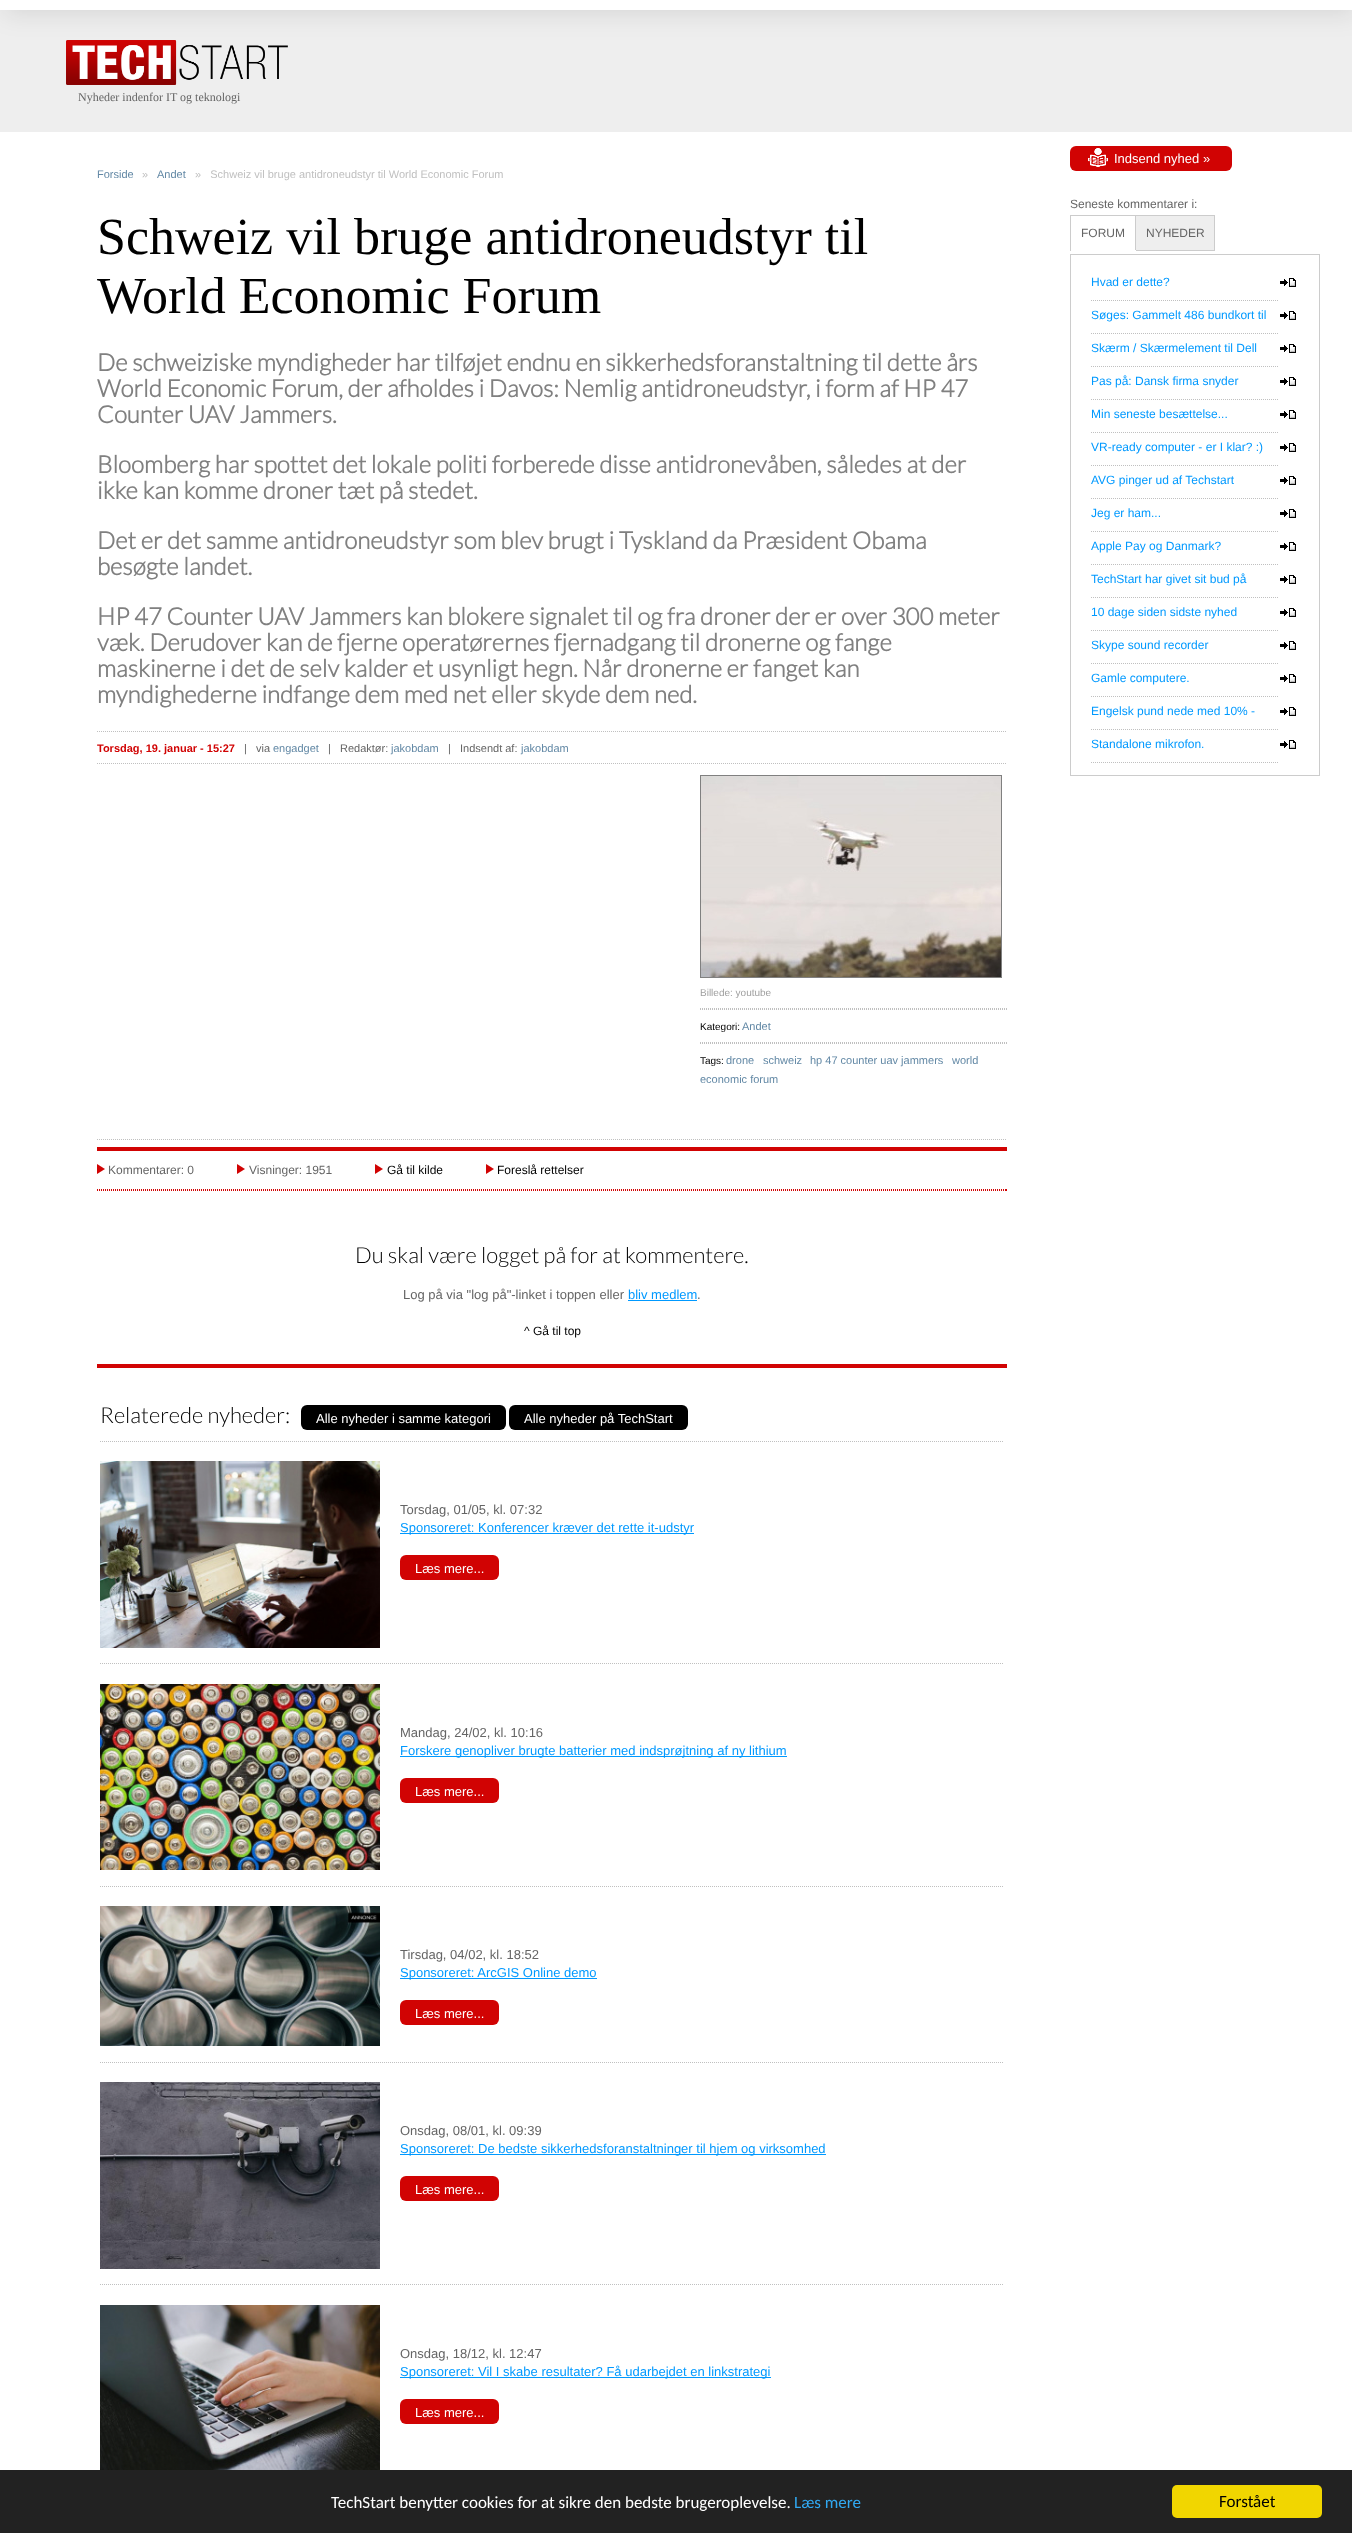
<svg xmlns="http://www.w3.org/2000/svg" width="1352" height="2533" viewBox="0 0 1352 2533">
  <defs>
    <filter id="blur1" x="-50%" y="-200%" width="200%" height="500%"><feGaussianBlur stdDeviation="12.5"/></filter>
  </defs>
  <rect width="100%" height="100%" fill="#ffffff"/>
  <rect x="0" y="10" width="1352" height="122" fill="#eeeeee"/>
  <rect x="4" y="-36" width="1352" height="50" fill="#000000" fill-opacity="0.1" filter="url(#blur1)"/>
  <rect x="0" y="0" width="1352" height="10" fill="#ffffff"/>
  <image x="66" y="40" width="222" height="45" href="img1.png"/>
  <text x="78" y="101" font-family="Liberation Serif" font-size="12" fill="#656565">Nyheder indenfor IT og teknologi</text>
  <rect x="1070" y="146" width="162" height="25" rx="6" fill="#d10303"/>
  <image x="1088" y="148" width="20" height="19" href="img2.png"/>
  <text x="1114" y="163" font-family="Liberation Sans" font-size="13" fill="#ffffff">Indsend nyhed »</text>
  <text x="97" y="178" font-family="Liberation Sans" font-size="11" fill="#6288a5">Forside</text>
  <text x="142" y="178" font-family="Liberation Sans" font-size="11" fill="#c0c0c0">»</text>
  <text x="157" y="178" font-family="Liberation Sans" font-size="11" fill="#6288a5">Andet</text>
  <text x="195" y="178" font-family="Liberation Sans" font-size="11" fill="#c0c0c0" xml:space="preserve">»   Schweiz vil bruge antidroneudstyr til World Economic Forum</text>
  <text x="97" y="254" font-family="Tinos" font-size="52" fill="#000000">Schweiz vil bruge antidroneudstyr til</text>
  <text x="97" y="313" font-family="Tinos" font-size="52" fill="#000000">World Economic Forum</text>
  <text x="97" y="371" font-family="Lato" font-size="24" font-weight="bold" fill="#808080">De schweiziske myndigheder har tilføjet endnu en sikkerhedsforanstaltning til dette års</text>
  <text x="97" y="397" font-family="Lato" font-size="24" font-weight="bold" fill="#808080">World Economic Forum, der afholdes i Davos: Nemlig antidroneudstyr, i form af HP 47</text>
  <text x="97" y="423" font-family="Lato" font-size="24" font-weight="bold" fill="#808080">Counter UAV Jammers.</text>
  <text x="97" y="473" font-family="Lato" font-size="24" font-weight="bold" fill="#808080">Bloomberg har spottet det lokale politi forberede disse antidronevåben, således at der</text>
  <text x="97" y="499" font-family="Lato" font-size="24" font-weight="bold" fill="#808080">ikke kan komme droner tæt på stedet.</text>
  <text x="97" y="549" font-family="Lato" font-size="24" font-weight="bold" fill="#808080">Det er det samme antidroneudstyr som blev brugt i Tyskland da Præsident Obama</text>
  <text x="97" y="575" font-family="Lato" font-size="24" font-weight="bold" fill="#808080">besøgte landet.</text>
  <text x="97" y="625" font-family="Lato" font-size="24" font-weight="bold" fill="#808080">HP 47 Counter UAV Jammers kan blokere signalet til og fra droner der er over 300 meter</text>
  <text x="97" y="651" font-family="Lato" font-size="24" font-weight="bold" fill="#808080">væk. Derudover kan de fjerne operatørernes fjernadgang til dronerne og fange</text>
  <text x="97" y="677" font-family="Lato" font-size="24" font-weight="bold" fill="#808080">maskinerne i det de selv kalder et usynligt hegn. Når dronerne er fanget kan</text>
  <text x="97" y="703" font-family="Lato" font-size="24" font-weight="bold" fill="#808080">myndighederne indfange dem med net eller skyde dem ned.</text>
  <path d="M97 731.5H1007" fill="none" stroke="#c0c0c0" stroke-dasharray="1 1"/>
  <text x="97" y="752" font-family="Liberation Sans" font-size="11" font-weight="bold" fill="#d10303">Torsdag, 19. januar - 15:27</text>
  <text x="244" y="752" font-family="Liberation Sans" font-size="11" fill="#656565">|</text>
  <text x="256" y="752" font-family="Liberation Sans" font-size="11" fill="#656565">via</text>
  <text x="273" y="752" font-family="Liberation Sans" font-size="11" fill="#6288a5">engadget</text>
  <text x="328" y="752" font-family="Liberation Sans" font-size="11" fill="#656565">|</text>
  <text x="340" y="752" font-family="Liberation Sans" font-size="11" fill="#656565">Redaktør:</text>
  <text x="391" y="752" font-family="Liberation Sans" font-size="11" fill="#6288a5">jakobdam</text>
  <text x="448" y="752" font-family="Liberation Sans" font-size="11" fill="#656565">|</text>
  <text x="460" y="752" font-family="Liberation Sans" font-size="11" fill="#656565">Indsendt af:</text>
  <text x="521" y="752" font-family="Liberation Sans" font-size="11" fill="#6288a5">jakobdam</text>
  <path d="M97 763.5H1007" fill="none" stroke="#c0c0c0" stroke-dasharray="1 1"/>
  <rect x="700.5" y="775.5" width="301" height="202" fill="none" stroke="#808080"/>
  <image x="701" y="776" width="300" height="201" href="img3.png"/>
  <text x="700" y="996" font-family="Liberation Sans" font-size="10" fill="#a0a0a0">Billede: youtube</text>
  <path d="M700 1008.5H1007" fill="none" stroke="#c0c0c0" stroke-dasharray="1 1"/>
  <rect x="1006" y="1008" width="1" height="2" fill="#c0c0c0"/>
  <path d="M700 1009.5H1007" fill="none" stroke="#c0c0c0" stroke-dasharray="1 1"/>
  <text x="700" y="1030" font-family="Liberation Sans" font-size="10" fill="#000000">Kategori:</text>
  <text x="742" y="1030" font-family="Liberation Sans" font-size="11" fill="#6288a5">Andet</text>
  <path d="M700 1042.5H1007" fill="none" stroke="#c0c0c0" stroke-dasharray="1 1"/>
  <rect x="1006" y="1042" width="1" height="2" fill="#c0c0c0"/>
  <path d="M700 1043.5H1007" fill="none" stroke="#c0c0c0" stroke-dasharray="1 1"/>
  <text x="700" y="1064" font-family="Liberation Sans" font-size="10" fill="#000000">Tags:</text>
  <text x="726" y="1064" font-family="Liberation Sans" font-size="11" fill="#6288a5">drone</text>
  <text x="763" y="1064" font-family="Liberation Sans" font-size="11" fill="#6288a5">schweiz</text>
  <text x="810" y="1064" font-family="Liberation Sans" font-size="11" fill="#6288a5">hp 47 counter uav jammers</text>
  <text x="952" y="1064" font-family="Liberation Sans" font-size="11" fill="#6288a5">world</text>
  <text x="700" y="1083" font-family="Liberation Sans" font-size="11" fill="#6288a5">economic forum</text>
  <path d="M97 1139.5H1007" fill="none" stroke="#c0c0c0" stroke-dasharray="1 1"/>
  <rect x="97" y="1147" width="910" height="4" fill="#d10303"/>
  <path d="M97 1174V1164L105 1169Z" fill="#d10303"/>
  <text x="108" y="1174" font-family="Liberation Sans" font-size="12" fill="#656565">Kommentarer: 0</text>
  <path d="M237 1174V1164L245 1169Z" fill="#d10303"/>
  <text x="249" y="1174" font-family="Liberation Sans" font-size="12" fill="#656565">Visninger: 1951</text>
  <path d="M375 1174V1164L383 1169Z" fill="#d10303"/>
  <text x="387" y="1174" font-family="Liberation Sans" font-size="12" fill="#000000">Gå til kilde</text>
  <path d="M486 1174V1164L494 1169Z" fill="#d10303"/>
  <text x="497" y="1174" font-family="Liberation Sans" font-size="12" fill="#000000">Foreslå rettelser</text>
  <path d="M97 1189.5H1007" fill="none" stroke="#d10303" stroke-dasharray="1 1"/>
  <rect x="1006" y="1189" width="1" height="2" fill="#d10303"/>
  <path d="M97 1190.5H1007" fill="none" stroke="#d10303" stroke-dasharray="1 1"/>
  <text x="355" y="1263" font-family="Lato" font-size="22" font-weight="300" fill="#000000">Du skal være logget på for at kommentere.</text>
  <text x="403" y="1299" font-family="Liberation Sans" font-size="13" fill="#656565">Log på via "log på"-linket i toppen eller</text>
  <text x="628" y="1299" font-family="Liberation Sans" font-size="13" fill="#0099ff">bliv medlem</text>
  <rect x="628" y="1300" width="69" height="1" fill="#0099ff"/>
  <text x="697" y="1299" font-family="Liberation Sans" font-size="13" fill="#656565">.</text>
  <text x="524" y="1335" font-family="Liberation Sans" font-size="12" fill="#000000">^ Gå til top</text>
  <rect x="97" y="1364" width="910" height="4" fill="#d10303"/>
  <text x="100" y="1423" font-family="Lato" font-size="22" font-weight="300" fill="#000000">Relaterede nyheder:</text>
  <rect x="301" y="1405" width="205" height="25" rx="6" fill="#000000"/>
  <text x="316" y="1423" font-family="Liberation Sans" font-size="13" fill="#ffffff">Alle nyheder i samme kategori</text>
  <rect x="509" y="1405" width="179" height="25" rx="6" fill="#000000"/>
  <text x="524" y="1423" font-family="Liberation Sans" font-size="13" fill="#ffffff">Alle nyheder på TechStart</text>
  <path d="M100 1441.5H1004" fill="none" stroke="#c0c0c0" stroke-dasharray="1 1"/>
  <image x="100" y="1461" width="280" height="187" href="img4.png"/>
  <text x="400" y="1514" font-family="Liberation Sans" font-size="13" fill="#656565">Torsdag, 01/05, kl. 07:32</text>
  <rect x="400" y="1533" width="294" height="1" fill="#0099ff"/>
  <text x="400" y="1532" font-family="Liberation Sans" font-size="13" fill="#0099ff">Sponsoreret: Konferencer kræver det rette it-udstyr</text>
  <rect x="400" y="1555" width="99" height="25" rx="6" fill="#d10303"/>
  <text x="415" y="1573" font-family="Liberation Sans" font-size="13" fill="#ffffff">Læs mere...</text>
  <path d="M100 1663.5H1004" fill="none" stroke="#c0c0c0" stroke-dasharray="1 1"/>
  <image x="100" y="1684" width="280" height="186" href="img5.png"/>
  <text x="400" y="1737" font-family="Liberation Sans" font-size="13" fill="#656565">Mandag, 24/02, kl. 10:16</text>
  <rect x="400" y="1756" width="387" height="1" fill="#0099ff"/>
  <text x="400" y="1755" font-family="Liberation Sans" font-size="13" fill="#0099ff">Forskere genopliver brugte batterier med indsprøjtning af ny lithium</text>
  <rect x="400" y="1778" width="99" height="25" rx="6" fill="#d10303"/>
  <text x="415" y="1796" font-family="Liberation Sans" font-size="13" fill="#ffffff">Læs mere...</text>
  <path d="M100 1886.5H1004" fill="none" stroke="#c0c0c0" stroke-dasharray="1 1"/>
  <image x="100" y="1906" width="280" height="140" href="img6.png"/>
  <text x="400" y="1959" font-family="Liberation Sans" font-size="13" fill="#656565">Tirsdag, 04/02, kl. 18:52</text>
  <rect x="400" y="1978" width="197" height="1" fill="#0099ff"/>
  <text x="400" y="1977" font-family="Liberation Sans" font-size="13" fill="#0099ff">Sponsoreret: ArcGIS Online demo</text>
  <rect x="400" y="2000" width="99" height="25" rx="6" fill="#d10303"/>
  <text x="415" y="2018" font-family="Liberation Sans" font-size="13" fill="#ffffff">Læs mere...</text>
  <path d="M100 2062.5H1004" fill="none" stroke="#c0c0c0" stroke-dasharray="1 1"/>
  <image x="100" y="2082" width="280" height="187" href="img7.png"/>
  <text x="400" y="2135" font-family="Liberation Sans" font-size="13" fill="#656565">Onsdag, 08/01, kl. 09:39</text>
  <rect x="400" y="2154" width="426" height="1" fill="#0099ff"/>
  <text x="400" y="2153" font-family="Liberation Sans" font-size="13" fill="#0099ff">Sponsoreret: De bedste sikkerhedsforanstaltninger til hjem og virksomhed</text>
  <rect x="400" y="2176" width="99" height="25" rx="6" fill="#d10303"/>
  <text x="415" y="2194" font-family="Liberation Sans" font-size="13" fill="#ffffff">Læs mere...</text>
  <path d="M100 2284.5H1004" fill="none" stroke="#c0c0c0" stroke-dasharray="1 1"/>
  <image x="100" y="2305" width="280" height="165" href="img8.png"/>
  <text x="400" y="2358" font-family="Liberation Sans" font-size="13" fill="#656565">Onsdag, 18/12, kl. 12:47</text>
  <rect x="400" y="2377" width="371" height="1" fill="#0099ff"/>
  <text x="400" y="2376" font-family="Liberation Sans" font-size="13" fill="#0099ff">Sponsoreret: Vil I skabe resultater? Få udarbejdet en linkstrategi</text>
  <rect x="400" y="2399" width="99" height="25" rx="6" fill="#d10303"/>
  <text x="415" y="2417" font-family="Liberation Sans" font-size="13" fill="#ffffff">Læs mere...</text>
  <text x="1070" y="208" font-family="Liberation Sans" font-size="12" fill="#656565">Seneste kommentarer i:</text>
  <text x="1081" y="237" font-family="Liberation Sans" font-size="12" fill="#656565">FORUM</text>
  <rect x="1135.5" y="215.5" width="79" height="35" fill="#eeeeee" stroke="#cccccc"/>
  <rect x="1070" y="215" width="66" height="1" fill="#cccccc"/>
  <rect x="1135" y="250" width="1" height="1" fill="#ffffff"/>
  <rect x="1070" y="215" width="1" height="36" fill="#cccccc"/>
  <rect x="1070.5" y="254.5" width="249" height="521" fill="none" stroke="#cccccc"/>
  <text x="1091" y="286" font-family="Liberation Sans" font-size="12" fill="#0099ff">Hvad er dette?</text>
  <image x="1280" y="278" width="16" height="9" href="img9.png"/>
  <path d="M1091 300.5H1278" fill="none" stroke="#c0c0c0" stroke-dasharray="1 1"/>
  <text x="1091" y="319" font-family="Liberation Sans" font-size="12" fill="#0099ff">Søges: Gammelt 486 bundkort til</text>
  <image x="1280" y="311" width="16" height="9" href="img9.png"/>
  <path d="M1091 333.5H1278" fill="none" stroke="#c0c0c0" stroke-dasharray="1 1"/>
  <text x="1091" y="352" font-family="Liberation Sans" font-size="12" fill="#0099ff">Skærm / Skærmelement til Dell</text>
  <image x="1280" y="344" width="16" height="9" href="img9.png"/>
  <path d="M1091 366.5H1278" fill="none" stroke="#c0c0c0" stroke-dasharray="1 1"/>
  <text x="1091" y="385" font-family="Liberation Sans" font-size="12" fill="#0099ff">Pas på: Dansk firma snyder</text>
  <image x="1280" y="377" width="16" height="9" href="img9.png"/>
  <path d="M1091 399.5H1278" fill="none" stroke="#c0c0c0" stroke-dasharray="1 1"/>
  <text x="1091" y="418" font-family="Liberation Sans" font-size="12" fill="#0099ff">Min seneste besættelse...</text>
  <image x="1280" y="410" width="16" height="9" href="img9.png"/>
  <path d="M1091 432.5H1278" fill="none" stroke="#c0c0c0" stroke-dasharray="1 1"/>
  <text x="1091" y="451" font-family="Liberation Sans" font-size="12" fill="#0099ff">VR-ready computer - er I klar? :)</text>
  <image x="1280" y="443" width="16" height="9" href="img9.png"/>
  <path d="M1091 465.5H1278" fill="none" stroke="#c0c0c0" stroke-dasharray="1 1"/>
  <text x="1091" y="484" font-family="Liberation Sans" font-size="12" fill="#0099ff">AVG pinger ud af Techstart</text>
  <image x="1280" y="476" width="16" height="9" href="img9.png"/>
  <path d="M1091 498.5H1278" fill="none" stroke="#c0c0c0" stroke-dasharray="1 1"/>
  <text x="1091" y="517" font-family="Liberation Sans" font-size="12" fill="#0099ff">Jeg er ham...</text>
  <image x="1280" y="509" width="16" height="9" href="img9.png"/>
  <path d="M1091 531.5H1278" fill="none" stroke="#c0c0c0" stroke-dasharray="1 1"/>
  <text x="1091" y="550" font-family="Liberation Sans" font-size="12" fill="#0099ff">Apple Pay og Danmark?</text>
  <image x="1280" y="542" width="16" height="9" href="img9.png"/>
  <path d="M1091 564.5H1278" fill="none" stroke="#c0c0c0" stroke-dasharray="1 1"/>
  <text x="1091" y="583" font-family="Liberation Sans" font-size="12" fill="#0099ff">TechStart har givet sit bud på</text>
  <image x="1280" y="575" width="16" height="9" href="img9.png"/>
  <path d="M1091 597.5H1278" fill="none" stroke="#c0c0c0" stroke-dasharray="1 1"/>
  <text x="1091" y="616" font-family="Liberation Sans" font-size="12" fill="#0099ff">10 dage siden sidste nyhed</text>
  <image x="1280" y="608" width="16" height="9" href="img9.png"/>
  <path d="M1091 630.5H1278" fill="none" stroke="#c0c0c0" stroke-dasharray="1 1"/>
  <text x="1091" y="649" font-family="Liberation Sans" font-size="12" fill="#0099ff">Skype sound recorder</text>
  <image x="1280" y="641" width="16" height="9" href="img9.png"/>
  <path d="M1091 663.5H1278" fill="none" stroke="#c0c0c0" stroke-dasharray="1 1"/>
  <text x="1091" y="682" font-family="Liberation Sans" font-size="12" fill="#0099ff">Gamle computere.</text>
  <image x="1280" y="674" width="16" height="9" href="img9.png"/>
  <path d="M1091 696.5H1278" fill="none" stroke="#c0c0c0" stroke-dasharray="1 1"/>
  <text x="1091" y="715" font-family="Liberation Sans" font-size="12" fill="#0099ff">Engelsk pund nede med 10% -</text>
  <image x="1280" y="707" width="16" height="9" href="img9.png"/>
  <path d="M1091 729.5H1278" fill="none" stroke="#c0c0c0" stroke-dasharray="1 1"/>
  <text x="1091" y="748" font-family="Liberation Sans" font-size="12" fill="#0099ff">Standalone mikrofon.</text>
  <image x="1280" y="740" width="16" height="9" href="img9.png"/>
  <path d="M1091 762.5H1278" fill="none" stroke="#c0c0c0" stroke-dasharray="1 1"/>
  <text x="1146" y="237" font-family="Liberation Sans" font-size="12" fill="#656565">NYHEDER</text>
  <rect x="0" y="2470" width="1352" height="63" fill="#222222"/>
  <text x="331" y="2508" font-family="Carlito" font-size="17" fill="#ffffff">TechStart benytter cookies for at sikre den bedste brugeroplevelse.</text>
  <text x="794" y="2508" font-family="Carlito" font-size="17" fill="#31a8f0">Læs mere</text>
  <rect x="1172" y="2485" width="150" height="33" rx="5" fill="#f1d600"/>
  <text x="1219" y="2507" font-family="Carlito" font-size="17" fill="#000000">Forstået</text>
</svg>
